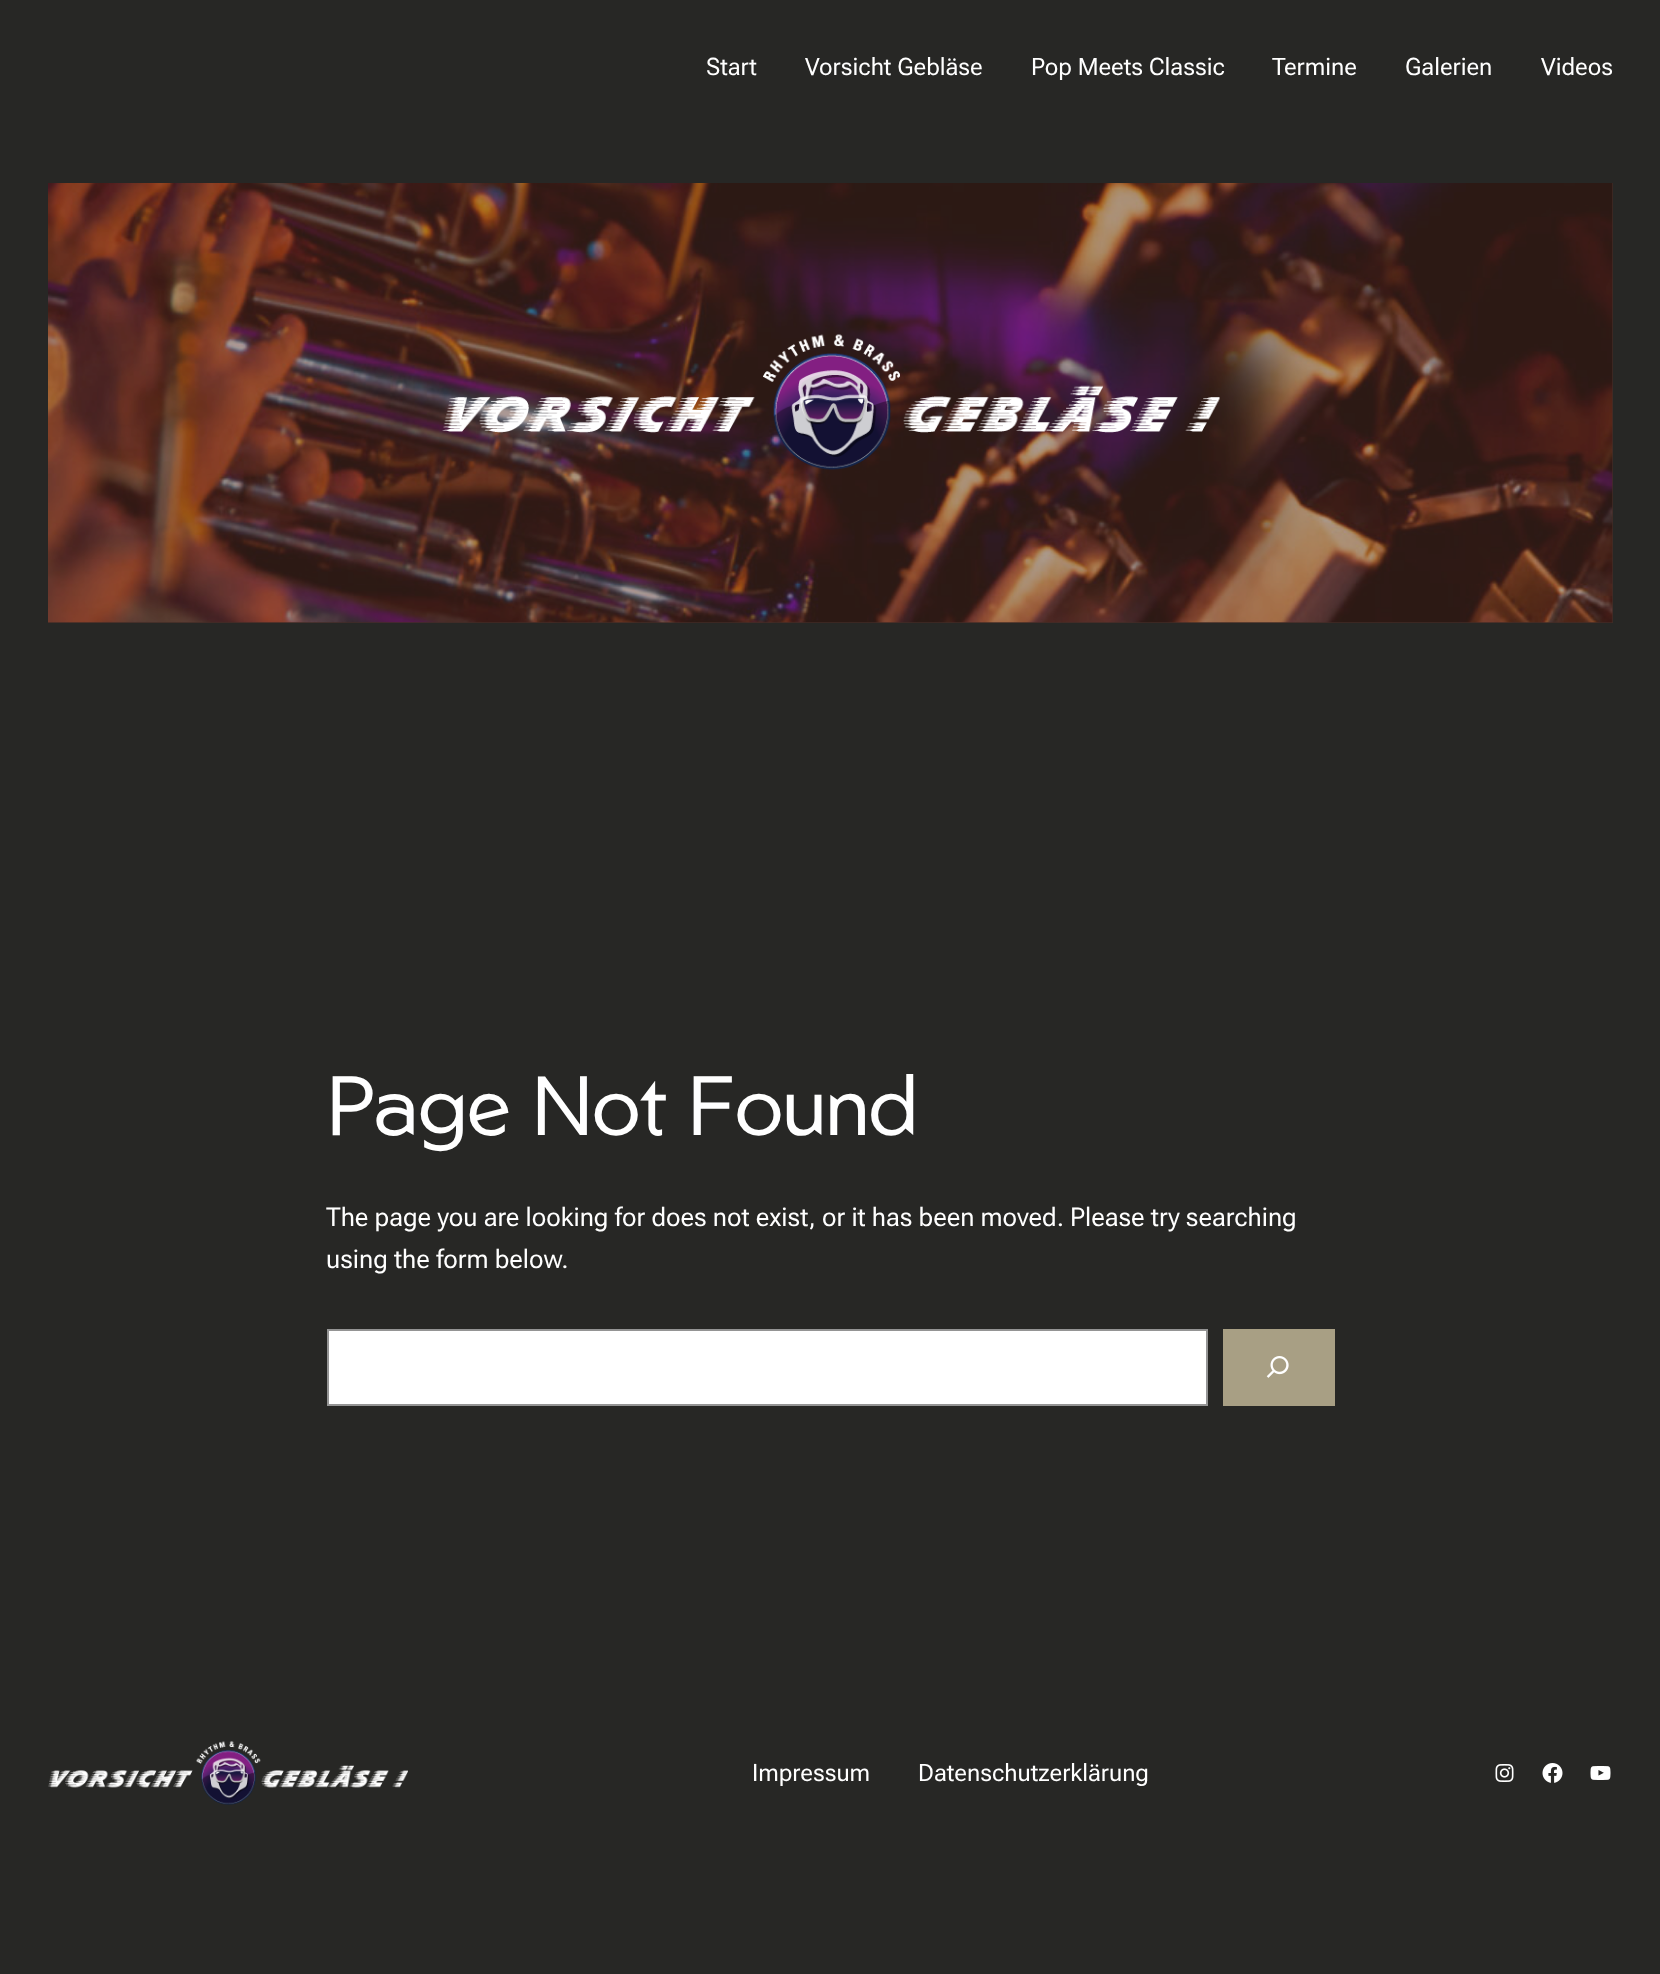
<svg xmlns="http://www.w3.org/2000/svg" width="1660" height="1974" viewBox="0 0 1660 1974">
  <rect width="100%" height="100%" fill="#272725"/>
  <rect x="48" y="183" width="1565" height="440" fill="#402d27"/>
  <text x="706" y="75" font-family="'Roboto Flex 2'" font-size="24" fill="#ffffff">Start</text>
  <text x="805" y="75" font-family="'Roboto Flex 2'" font-size="24" fill="#ffffff">Vorsicht Gebläse</text>
  <text x="1031" y="75" font-family="'Roboto Flex 2'" font-size="24" fill="#ffffff">Pop Meets Classic</text>
  <text x="1272" y="75" font-family="'Roboto Flex 2'" font-size="24" fill="#ffffff">Termine</text>
  <text x="1405" y="75" font-family="'Roboto Flex 2'" font-size="24" fill="#ffffff">Galerien</text>
  <text x="1541" y="75" font-family="'Roboto Flex 2'" font-size="24" fill="#ffffff">Videos</text>
  <image x="48" y="183" width="1565" height="440" href="img1.png"/>
  <image x="442" y="334" width="778" height="136" href="img2.png"/>
  <text x="326" y="1135" font-family="Geom" font-size="83.5" font-weight="300" letter-spacing="-1.7" fill="#ffffff">Page Not Found</text>
  <text x="326" y="1226" font-family="Roboto Flex" font-size="25.9" fill="#ffffff">The page you are looking for does not exist, or it has been moved. Please try searching</text>
  <text x="326" y="1268" font-family="Roboto Flex" font-size="25.9" fill="#ffffff">using the form below.</text>
  <rect x="328" y="1330" width="879" height="75" fill="#ffffff" stroke="#949494" stroke-width="2"/>
  <rect x="1223" y="1329" width="112" height="77" fill="#a89f84"/>
  <image x="1266" y="1356" width="23" height="22" href="img3.png"/>
  <image x="48" y="1741" width="360" height="64" href="img4.png"/>
  <text x="752" y="1781" font-family="'Roboto Flex 2'" font-size="24" fill="#ffffff">Impressum</text>
  <text x="918" y="1781" font-family="'Roboto Flex 2'" font-size="24" fill="#ffffff">Datenschutzerklärung</text>
  <image x="1495" y="1764" width="19" height="18" href="img5.png"/>
  <image x="1542" y="1763" width="21" height="20" href="img6.png"/>
  <image x="1590" y="1766" width="21" height="14" href="img7.png"/>
</svg>
